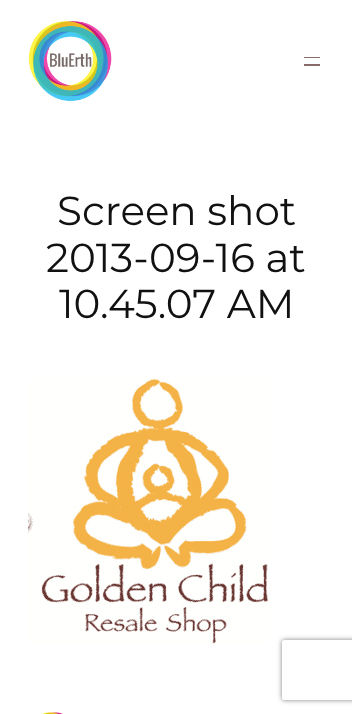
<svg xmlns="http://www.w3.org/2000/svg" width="352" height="714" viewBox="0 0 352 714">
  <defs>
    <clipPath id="clip1"><path d="M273 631H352V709H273ZM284 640H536C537 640 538 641 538 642V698C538 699 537 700 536 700H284C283 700 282 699 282 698V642C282 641 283 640 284 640Z" clip-rule="evenodd"/></clipPath>
    <filter id="blur1" x="-50%" y="-200%" width="200%" height="500%"><feGaussianBlur stdDeviation="2.5"/></filter>
  </defs>
  <rect width="100%" height="100%" fill="#ffffff"/>
  <image x="28" y="21" width="84" height="81" href="img1.png"/>
  <rect x="304" y="57" width="16" height="1" fill="#876b68"/>
  <rect x="304" y="64" width="16" height="2" fill="#876b68"/>
  <text x="57" y="225" font-family="Montserrat" font-size="40.5" fill="#111111">Screen shot</text>
  <text x="46" y="272" font-family="Montserrat" font-size="40.5" fill="#111111">2013-09-16 at</text>
  <text x="59" y="318" font-family="Montserrat" font-size="40.5" fill="#111111">10.45.07 AM</text>
  <image x="28" y="378" width="241" height="266" href="img2.png"/>
  <image x="42" y="712" width="22" height="2" href="img3.png"/>
  <g clip-path="url(#clip1)">
    <rect x="282" y="640" width="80" height="60" rx="2" fill="#808080" filter="url(#blur1)"/>
  </g>
</svg>
